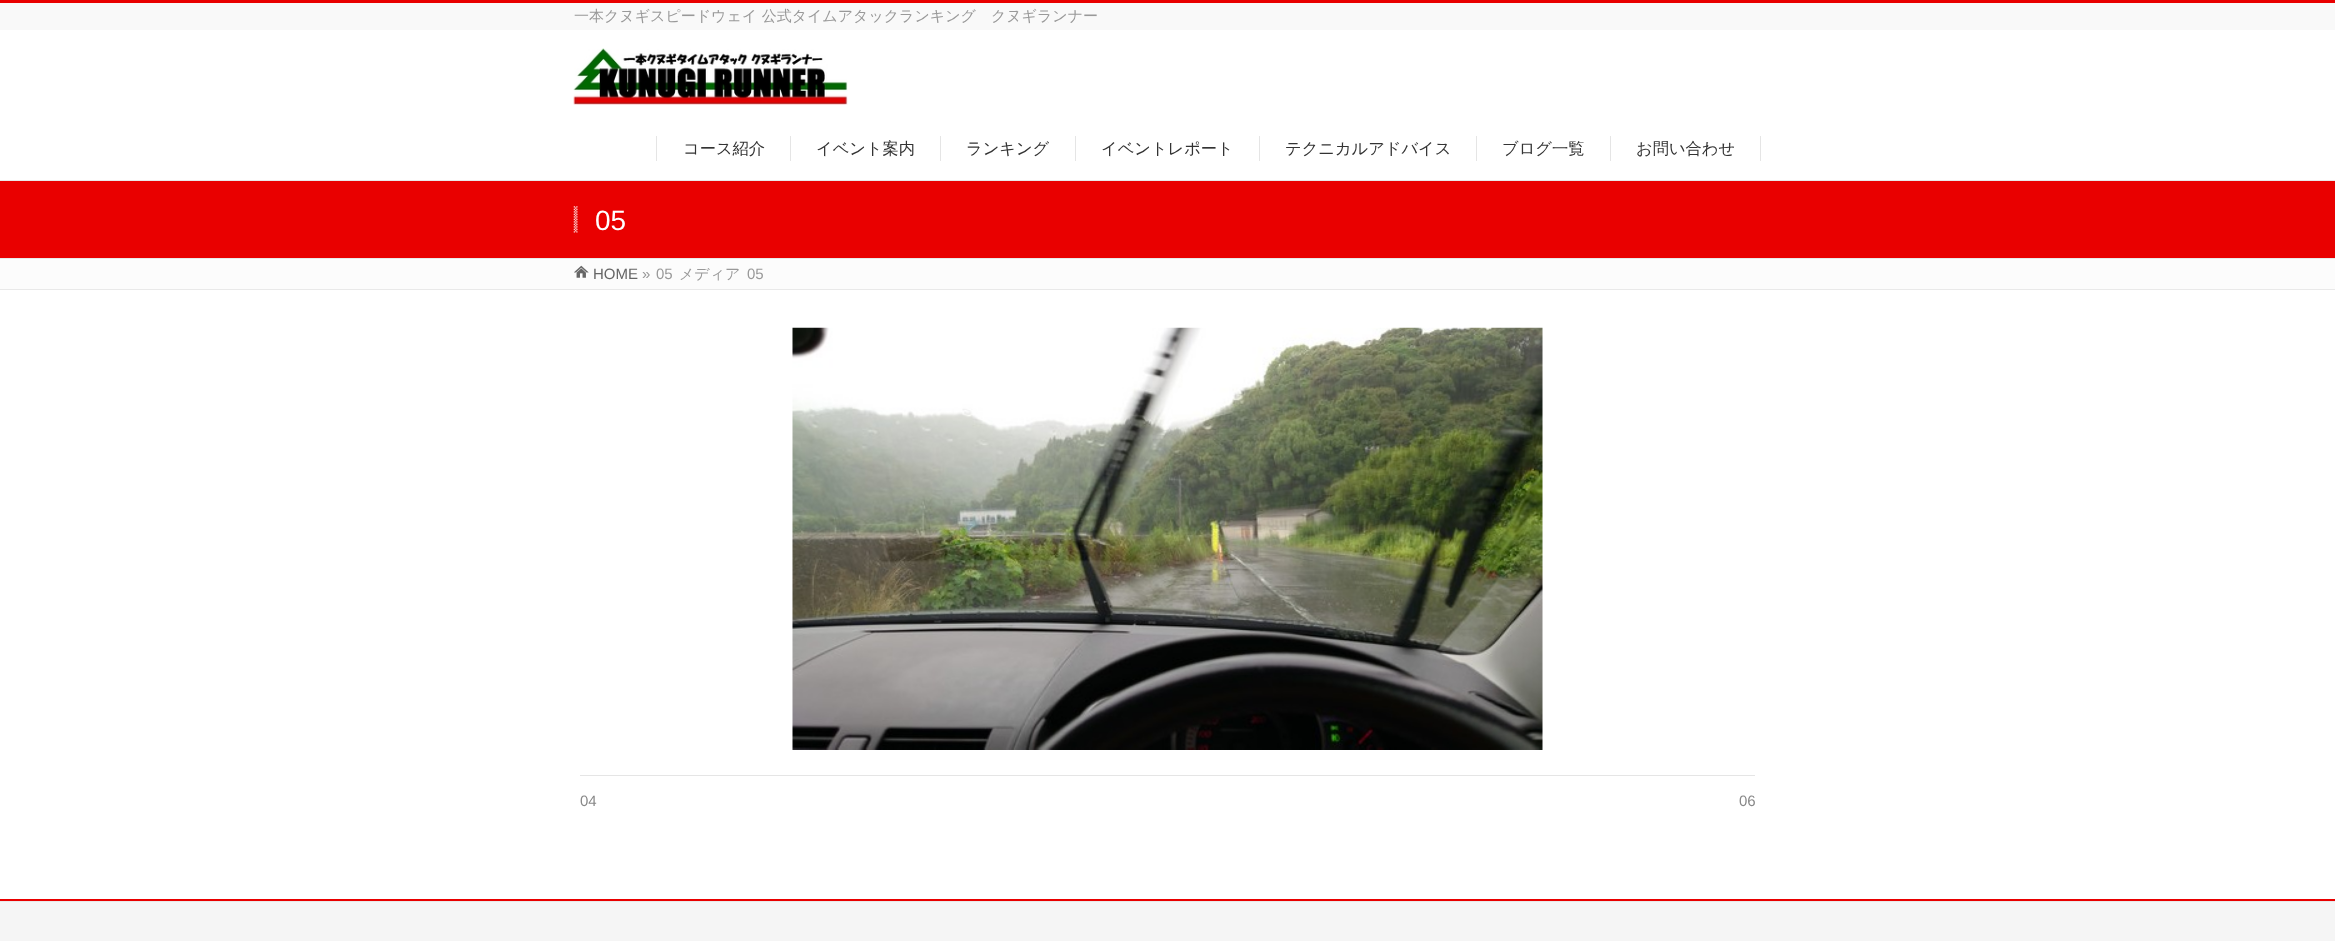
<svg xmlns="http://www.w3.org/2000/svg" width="2335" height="941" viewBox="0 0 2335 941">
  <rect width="100%" height="100%" fill="#ffffff"/>
  <rect x="0" y="3" width="2335" height="27" fill="#f9f9f9"/>
  <rect x="0" y="0" width="2335" height="3" fill="#e90000"/>
  <text x="574" y="21" font-family="WenQuanYi Zen Hei" font-size="15" font-weight="500" fill="#999999">一本クヌギスピードウェイ 公式タイムアタックランキング　クヌギランナー</text>
  <image x="573" y="48" width="275" height="57" href="img1.png"/>
  <rect x="790" y="136" width="1" height="25" fill="#e5e5e5"/>
  <rect x="656" y="136" width="1" height="25" fill="#e5e5e5"/>
  <text x="683" y="154" font-family="WenQuanYi Zen Hei" font-size="16.25" font-weight="500" fill="#333333">コース紹介</text>
  <rect x="940" y="136" width="1" height="25" fill="#e5e5e5"/>
  <text x="816" y="154" font-family="WenQuanYi Zen Hei" font-size="16.25" font-weight="500" fill="#333333">イベント案内</text>
  <rect x="1075" y="136" width="1" height="25" fill="#e5e5e5"/>
  <text x="966" y="154" font-family="WenQuanYi Zen Hei" font-size="16.25" font-weight="500" fill="#333333">ランキング</text>
  <rect x="1259" y="136" width="1" height="25" fill="#e5e5e5"/>
  <text x="1101" y="154" font-family="WenQuanYi Zen Hei" font-size="16.25" font-weight="500" fill="#333333">イベントレポート</text>
  <rect x="1476" y="136" width="1" height="25" fill="#e5e5e5"/>
  <text x="1285" y="154" font-family="WenQuanYi Zen Hei" font-size="16.25" font-weight="500" fill="#333333">テクニカルアドバイス</text>
  <rect x="1610" y="136" width="1" height="25" fill="#e5e5e5"/>
  <text x="1502" y="154" font-family="WenQuanYi Zen Hei" font-size="16.25" font-weight="500" fill="#333333">ブログ一覧</text>
  <rect x="1760" y="136" width="1" height="25" fill="#e5e5e5"/>
  <text x="1636" y="154" font-family="WenQuanYi Zen Hei" font-size="16.25" font-weight="500" fill="#333333">お問い合わせ</text>
  <rect x="0" y="181" width="2335" height="77" fill="#e90000"/>
  <rect x="0" y="180" width="2335" height="1" fill="#e9e9e9"/>
  <rect x="0" y="258" width="2335" height="1" fill="#e9e9e9"/>
  <image x="573" y="206" width="5" height="27" href="img2.png"/>
  <text x="595" y="230" font-family="Liberation Sans" font-size="28" fill="#ffffff">05</text>
  <rect x="0" y="259" width="2335" height="30" fill="#fcfcfc"/>
  <image x="574" y="265" width="15" height="13" href="img3.png"/>
  <text x="593" y="279" font-family="Liberation Sans" font-size="15" fill="#666666">HOME</text>
  <text x="642" y="279" font-family="Liberation Sans" font-size="15" fill="#999999">»</text>
  <text x="656" y="279" font-family="Liberation Sans" font-size="15" fill="#999999">05</text>
  <text x="679" y="279" font-family="WenQuanYi Zen Hei" font-size="15" font-weight="500" fill="#999999">メディア</text>
  <text x="747" y="279" font-family="Liberation Sans" font-size="15" fill="#999999">05</text>
  <rect x="0" y="289" width="2335" height="1" fill="#e9e9e9"/>
  <image x="792" y="327" width="751" height="423" href="img4.png"/>
  <rect x="580" y="775" width="1175" height="1" fill="#e5e5e5"/>
  <text x="580" y="806" font-family="Liberation Sans" font-size="15" fill="#888888">04</text>
  <text x="1739" y="806" font-family="Liberation Sans" font-size="15" fill="#888888">06</text>
  <rect x="0" y="899" width="2335" height="2" fill="#e90000"/>
  <rect x="0" y="901" width="2335" height="1" fill="#e9e9e9"/>
  <rect x="0" y="902" width="2335" height="39" fill="#f5f5f5"/>
</svg>
